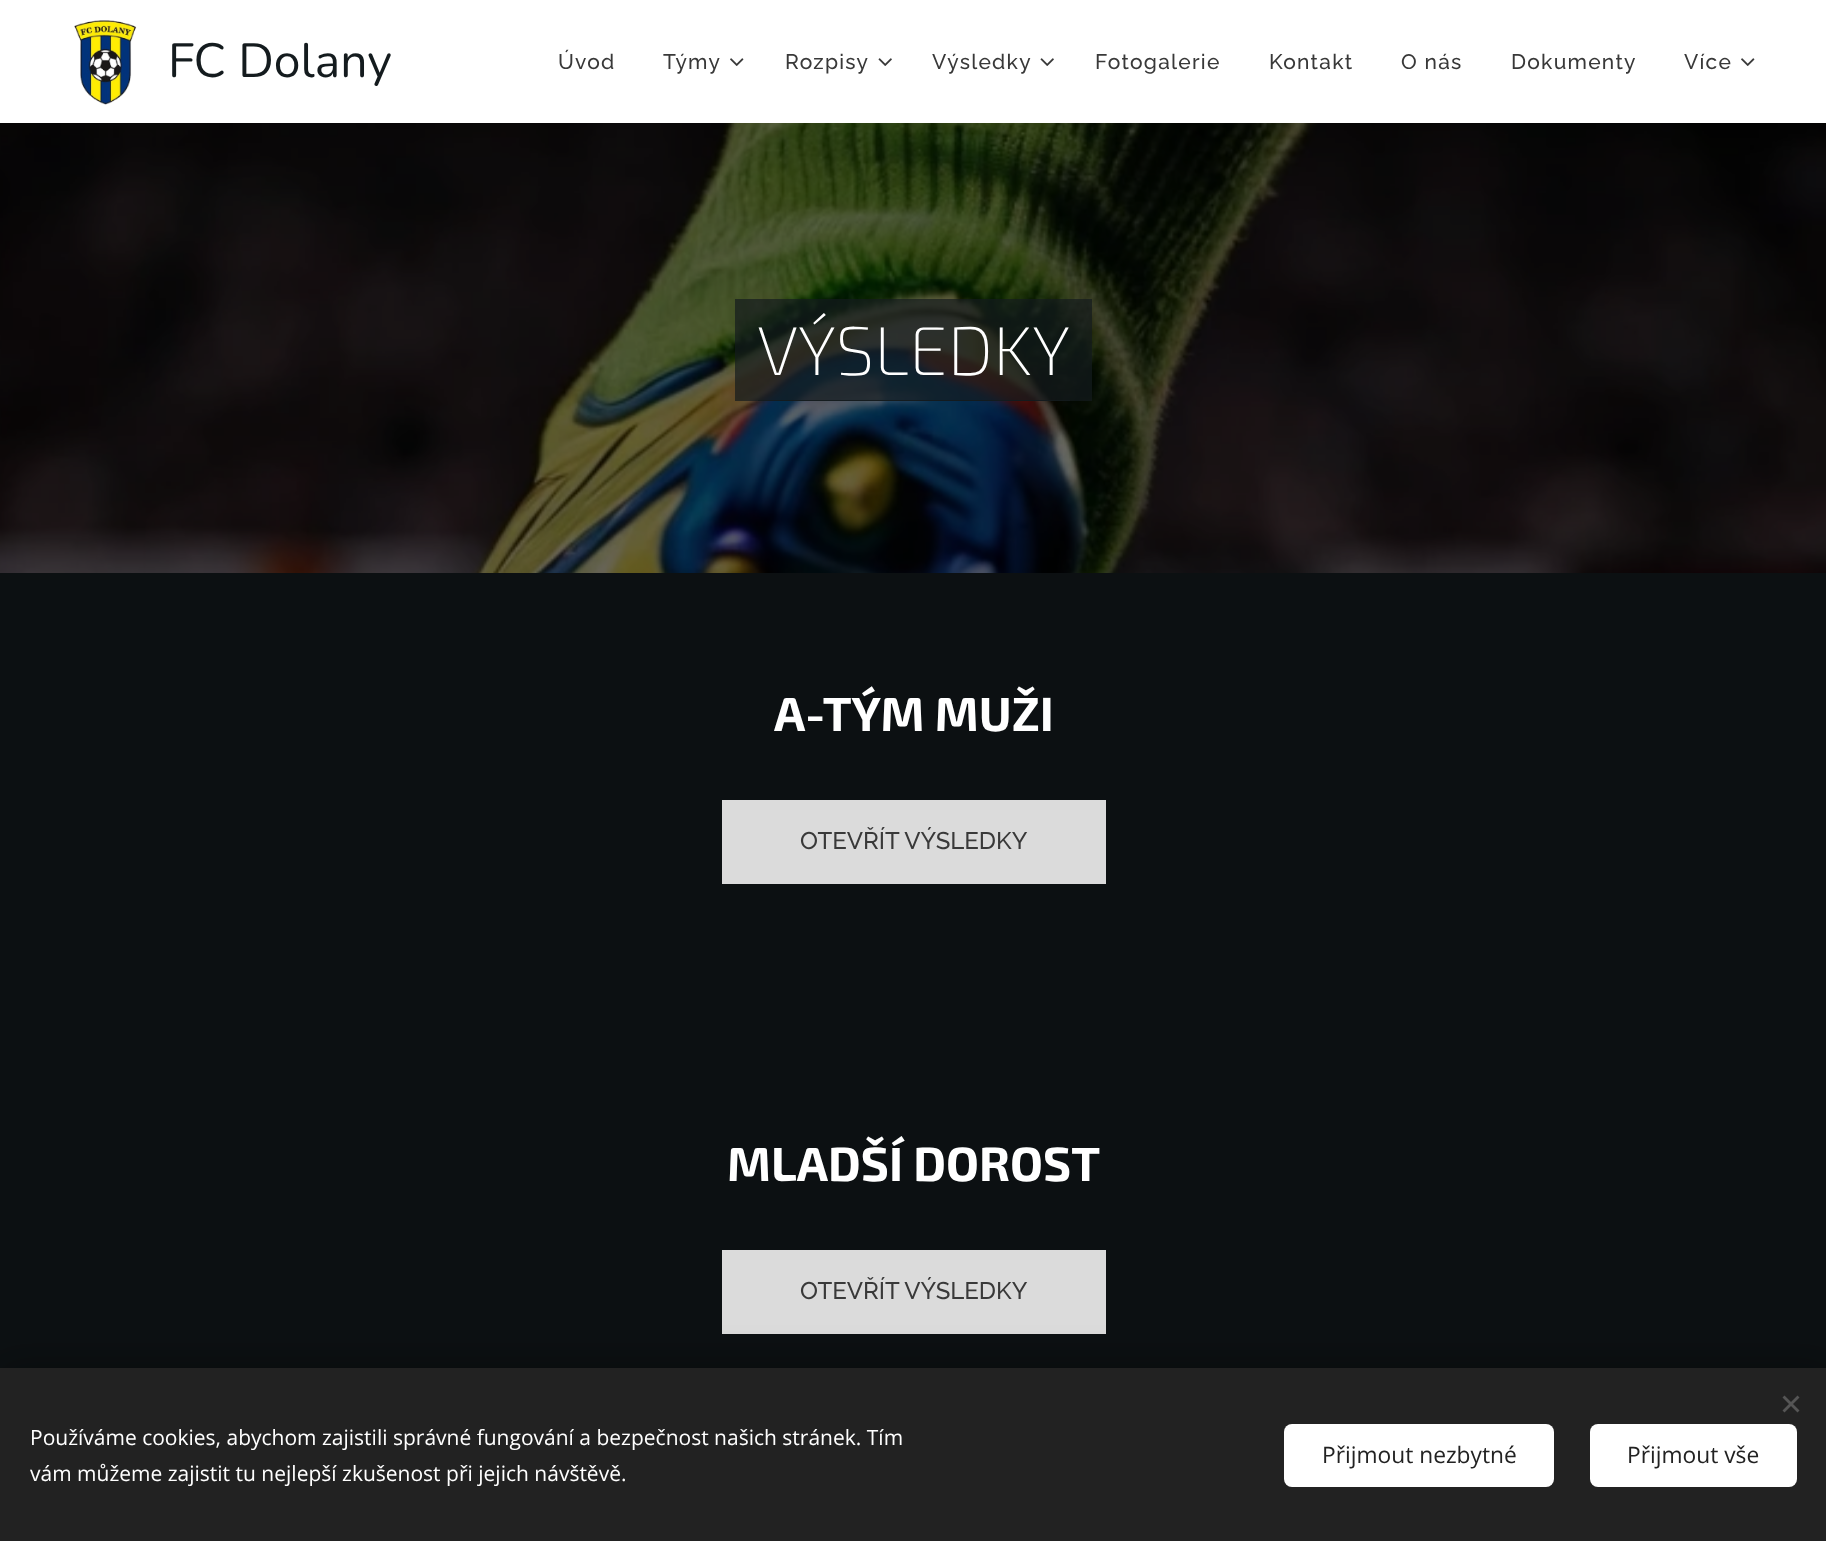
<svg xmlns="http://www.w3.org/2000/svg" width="1826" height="1541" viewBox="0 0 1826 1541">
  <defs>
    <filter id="blur1" x="-50%" y="-200%" width="200%" height="500%"><feGaussianBlur stdDeviation="19"/></filter>
  </defs>
  <rect width="100%" height="100%" fill="#ffffff"/>
  <image x="74" y="20" width="63" height="85" href="img1.png"/>
  <text x="168" y="77" font-family="Nunito" font-size="48" fill="#141b1e">FC Dolany</text>
  <text x="558" y="69" font-family="Raleway" font-size="21" font-weight="500" letter-spacing="1.25" fill="#393939">Úvod</text>
  <text x="663" y="69" font-family="Raleway" font-size="21" font-weight="500" letter-spacing="1.25" fill="#393939">Týmy</text>
  <image x="730" y="58" width="14" height="8" href="img2.png"/>
  <text x="785" y="69" font-family="Raleway" font-size="21" font-weight="500" letter-spacing="1.25" fill="#393939">Rozpisy</text>
  <image x="878" y="58" width="14" height="8" href="img3.png"/>
  <text x="932" y="69" font-family="Raleway" font-size="21" font-weight="500" letter-spacing="1.25" fill="#393939">Výsledky</text>
  <image x="1040" y="58" width="14" height="8" href="img3.png"/>
  <text x="1095" y="69" font-family="Raleway" font-size="21" font-weight="500" letter-spacing="1.25" fill="#393939">Fotogalerie</text>
  <text x="1269" y="69" font-family="Raleway" font-size="21" font-weight="500" letter-spacing="1.25" fill="#393939">Kontakt</text>
  <text x="1401" y="69" font-family="Raleway" font-size="21" font-weight="500" letter-spacing="1.25" fill="#393939">O nás</text>
  <text x="1511" y="69" font-family="Raleway" font-size="21" font-weight="500" letter-spacing="1.25" fill="#393939">Dokumenty</text>
  <text x="1684" y="69" font-family="Raleway" font-size="21" font-weight="500" letter-spacing="1.25" fill="#393939">Více</text>
  <image x="1741" y="58" width="14" height="8" href="img2.png"/>
  <image x="0" y="123" width="1826" height="450" href="img4.png"/>
  <path d="M735 299V401H1047V400H758V299Z" fill="#141b1e" fill-opacity="0.7"/>
  <path d="M780 400V401H1092V299H1070V400Z" fill="#141b1e" fill-opacity="0.7"/>
  <rect x="758" y="299" width="312" height="102" fill="#141b1e" fill-opacity="0.7"/>
  <text x="757" y="375" font-family="'Exo 2'" font-size="69" font-weight="200" fill="#ffffff">VÝSLEDKY</text>
  <rect x="0" y="573" width="1826" height="795" fill="#0c1012"/>
  <text x="774" y="731" font-family="'Exo 2'" font-size="48" font-weight="bold" fill="#ffffff">A-TÝM MUŽI</text>
  <rect x="722" y="800" width="384" height="84" fill="#dbdbdb"/>
  <text x="800" y="849" font-family="Raleway" font-size="24" font-weight="500" fill="#393939">OTEVŘÍT VÝSLEDKY</text>
  <text x="727" y="1181" font-family="'Exo 2'" font-size="48" font-weight="bold" fill="#ffffff">MLADŠÍ DOROST</text>
  <rect x="722" y="1250" width="384" height="84" fill="#dbdbdb"/>
  <text x="800" y="1299" font-family="Raleway" font-size="24" font-weight="500" fill="#393939">OTEVŘÍT VÝSLEDKY</text>
  <rect x="0" y="1368" width="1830" height="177" fill="#000000" fill-opacity="0.33" filter="url(#blur1)"/>
  <rect x="0" y="1368" width="1826" height="173" fill="#222222"/>
  <path d="M1782.5 1410.5L1797.5 1395.5L1799.5 1397.5L1784.5 1412.5Z" fill="#555555"/>
  <path d="M1784.5 1395.5L1799.5 1410.5L1797.5 1412.5L1782.5 1397.5Z" fill="#555555"/>
  <text x="30" y="1445" font-family="Open Sans" font-size="21" fill="#ffffff">Používáme cookies, abychom zajistili správné fungování a bezpečnost našich stránek. Tím</text>
  <text x="30" y="1481" font-family="Open Sans" font-size="21" fill="#ffffff">vám můžeme zajistit tu nejlepší zkušenost při jejich návštěvě.</text>
  <rect x="1284" y="1424" width="270" height="63" rx="8" fill="#ffffff"/>
  <text x="1322" y="1463" font-family="Open Sans" font-size="22.75" fill="#222222">Přijmout nezbytné</text>
  <rect x="1590" y="1424" width="207" height="63" rx="8" fill="#ffffff"/>
  <text x="1627" y="1463" font-family="Open Sans" font-size="22.75" fill="#222222">Přijmout vše</text>
</svg>
